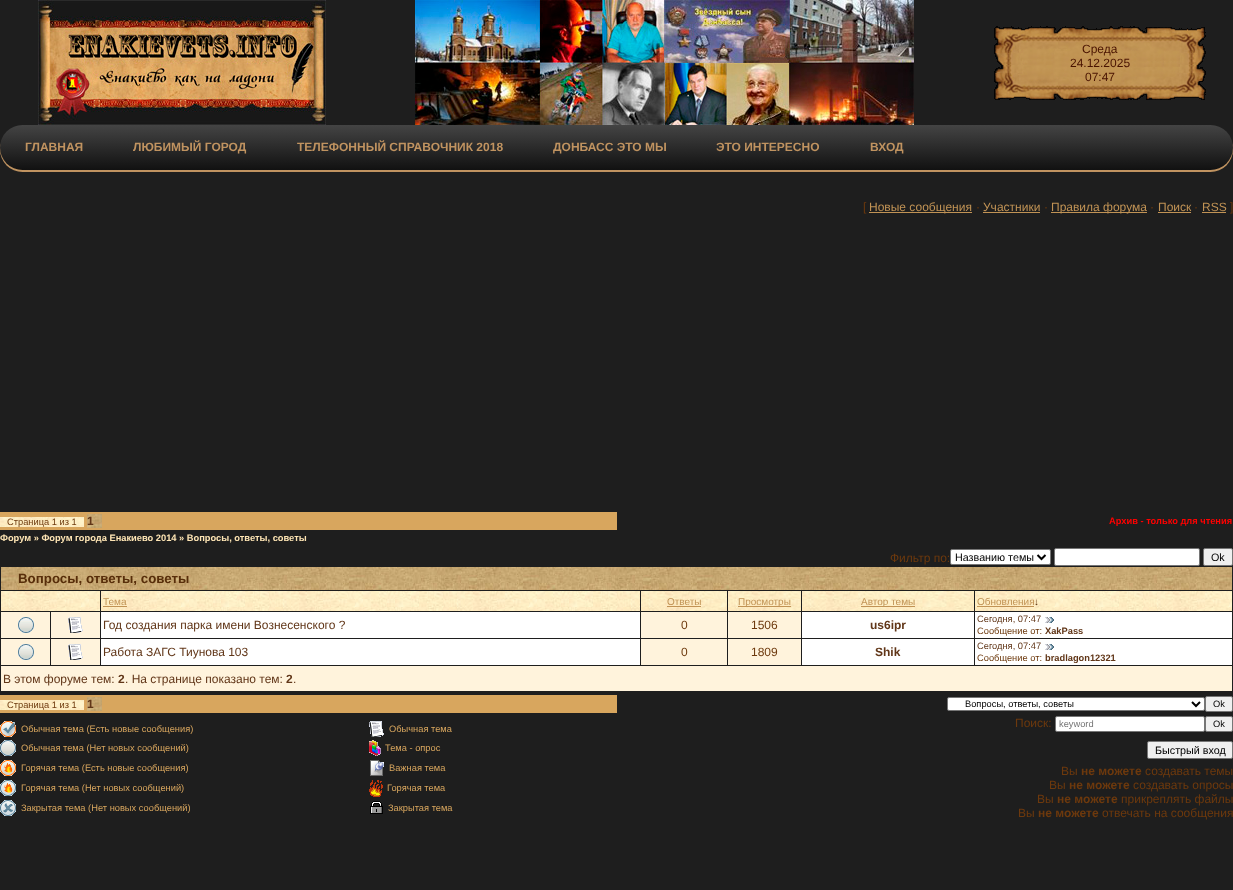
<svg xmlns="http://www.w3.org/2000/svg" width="1233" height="890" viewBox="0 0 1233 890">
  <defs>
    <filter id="blur1" x="-50%" y="-200%" width="200%" height="500%"><feGaussianBlur stdDeviation="0.5"/></filter>
    <linearGradient id="g1" gradientUnits="userSpaceOnUse" x1="617" y1="125" x2="617" y2="170"><stop offset="0" stop-color="#444444"/><stop offset="1" stop-color="#111111"/></linearGradient>
  </defs>
  <rect width="100%" height="100%" fill="#1e1e1e"/>
  <rect x="0" y="127" width="1233" height="45" rx="22.5" fill="#c09360" filter="url(#blur1)"/>
  <image x="38" y="0" width="288" height="125" href="img1.png"/>
  <image x="415" y="0" width="499" height="125" href="img2.png"/>
  <image x="994" y="26" width="212" height="74" href="img3.png"/>
  <text x="1082" y="53" font-family="Liberation Sans" font-size="12" fill="#491300">Среда</text>
  <text x="1070" y="67" font-family="Liberation Sans" font-size="12" fill="#491300">24.12.2025</text>
  <text x="1085" y="81" font-family="Liberation Sans" font-size="12" fill="#491300">07:47</text>
  <rect x="0" y="125" width="1233" height="45" rx="22.5" fill="url(#g1)"/>
  <text x="25" y="151" font-family="Liberation Sans" font-size="12" font-weight="bold" fill="#c09360">ГЛАВНАЯ</text>
  <text x="133" y="151" font-family="Liberation Sans" font-size="12" font-weight="bold" fill="#c09360">ЛЮБИМЫЙ ГОРОД</text>
  <text x="297" y="151" font-family="Liberation Sans" font-size="12" font-weight="bold" fill="#c09360">ТЕЛЕФОННЫЙ СПРАВОЧНИК 2018</text>
  <text x="553" y="151" font-family="Liberation Sans" font-size="12" font-weight="bold" fill="#c09360">ДОНБАСС ЭТО МЫ</text>
  <text x="716" y="151" font-family="Liberation Sans" font-size="12" font-weight="bold" fill="#c09360">ЭТО ИНТЕРЕСНО</text>
  <text x="870" y="151" font-family="Liberation Sans" font-size="12" font-weight="bold" fill="#c09360">ВХОД</text>
  <text x="863" y="211" font-family="Liberation Sans" font-size="12" fill="#6d390d">[</text>
  <rect x="869" y="212" width="103" height="1" fill="#c19355"/>
  <text x="869" y="211" font-family="Liberation Sans" font-size="12" fill="#c19355">Новые сообщения</text>
  <text x="976" y="211" font-family="Liberation Sans" font-size="12" fill="#6d390d">·</text>
  <text x="983" y="211" font-family="Liberation Sans" font-size="12" fill="#c19355">Участники</text>
  <rect x="983" y="212" width="57" height="1" fill="#c19355"/>
  <text x="1044" y="211" font-family="Liberation Sans" font-size="12" fill="#6d390d">·</text>
  <rect x="1051" y="212" width="96" height="1" fill="#c19355"/>
  <text x="1051" y="211" font-family="Liberation Sans" font-size="12" fill="#c19355">Правила форума</text>
  <text x="1150" y="211" font-family="Liberation Sans" font-size="12" fill="#6d390d">·</text>
  <text x="1158" y="211" font-family="Liberation Sans" font-size="12" fill="#c19355">Поиск</text>
  <rect x="1158" y="212" width="33" height="1" fill="#c19355"/>
  <text x="1194" y="211" font-family="Liberation Sans" font-size="12" fill="#6d390d">·</text>
  <text x="1202" y="211" font-family="Liberation Sans" font-size="12" fill="#c19355">RSS</text>
  <rect x="1202" y="212" width="24" height="1" fill="#c19355"/>
  <text x="1230" y="211" font-family="Liberation Sans" font-size="12" fill="#6d390d">]</text>
  <rect x="0" y="512" width="617" height="18" fill="#d8a65e"/>
  <image x="0" y="517" width="84" height="10" href="img4.png"/>
  <text x="7" y="525" font-family="Liberation Sans" font-size="9.3" fill="#6d390d">Страница 1 из 1</text>
  <image x="87" y="514" width="15" height="14" href="img5.png"/>
  <text x="87" y="525" font-family="Liberation Sans" font-size="12" font-weight="bold" fill="#613618">1</text>
  <text x="1109" y="524" font-family="Liberation Sans" font-size="9.3" font-weight="bold" fill="#ff0000">Архив - только для чтения</text>
  <text x="0" y="541" font-family="Liberation Sans" font-size="9.3" font-weight="bold" fill="#ffe6b5">Форум » Форум города Енакиево 2014 » Вопросы, ответы, советы</text>
  <text x="890" y="562" font-family="Liberation Sans" font-size="12" fill="#6d390d">Фильтр по:</text>
  <rect x="950.5" y="549.5" width="100" height="15" rx="1.5" fill="#ffffff" stroke="#767676"/>
  <path d="M1037.5 555L1041.5 559L1045.5 555" fill="none" stroke="#000000" stroke-width="2"/>
  <text x="955" y="561" font-family="Liberation Sans" font-size="10.75" fill="#000000">Названию темы</text>
  <rect x="1054.5" y="548.5" width="145" height="17" rx="1.5" fill="#ffffff" stroke="#767676"/>
  <rect x="1203.5" y="548.5" width="29" height="17" rx="1.5" fill="#efefef" stroke="#767676"/>
  <text x="1211" y="561" font-family="Liberation Sans" font-size="10.75" fill="#000000">Ok</text>
  <image x="1" y="567" width="1231" height="23" href="img6.png"/>
  <text x="18" y="583" font-family="Liberation Sans" font-size="13.3" font-weight="bold" fill="#582e0a">Вопросы, ответы, советы</text>
  <image x="1" y="591" width="99" height="20" href="img7.png"/>
  <image x="101" y="591" width="539" height="20" href="img8.png"/>
  <text x="103" y="605" font-family="Liberation Sans" font-size="10" fill="#c19355">Тема</text>
  <rect x="103" y="606" width="24" height="1" fill="#c19355"/>
  <image x="641" y="591" width="86" height="20" href="img9.png"/>
  <text x="667" y="605" font-family="Liberation Sans" font-size="10" fill="#c19355">Ответы</text>
  <rect x="667" y="606" width="34" height="1" fill="#c19355"/>
  <image x="728" y="591" width="73" height="20" href="img10.png"/>
  <rect x="738" y="606" width="53" height="1" fill="#c19355"/>
  <text x="738" y="605" font-family="Liberation Sans" font-size="10" fill="#c19355">Просмотры</text>
  <image x="802" y="591" width="172" height="20" href="img11.png"/>
  <rect x="861" y="606" width="54" height="1" fill="#c19355"/>
  <text x="861" y="605" font-family="Liberation Sans" font-size="10" fill="#c19355">Автор темы</text>
  <image x="975" y="591" width="257" height="20" href="img12.png"/>
  <text x="977" y="605" font-family="Liberation Sans" font-size="10" fill="#c19355">Обновления</text>
  <rect x="977" y="606" width="57" height="1" fill="#c19355"/>
  <text x="1034" y="605" font-family="Liberation Sans" font-size="10" fill="#582e0a">↓</text>
  <rect x="1" y="612" width="49" height="26" fill="#fff3dc"/>
  <image x="18" y="617" width="16" height="16" href="img13.png"/>
  <rect x="51" y="612" width="49" height="26" fill="#fff3dc"/>
  <image x="68" y="617" width="15" height="16" href="img14.png"/>
  <rect x="101" y="612" width="539" height="26" fill="#ffffff"/>
  <text x="103" y="629" font-family="Liberation Sans" font-size="12" fill="#613618">Год создания парка имени Вознесенского ?</text>
  <rect x="641" y="612" width="86" height="26" fill="#fff3dc"/>
  <text x="681" y="629" font-family="Liberation Sans" font-size="12" fill="#6d390d">0</text>
  <rect x="728" y="612" width="73" height="26" fill="#fff3dc"/>
  <text x="751" y="629" font-family="Liberation Sans" font-size="12" fill="#6d390d">1506</text>
  <rect x="802" y="612" width="172" height="26" fill="#ffffff"/>
  <text x="870" y="629" font-family="Liberation Sans" font-size="12" font-weight="bold" fill="#613618">us6ipr</text>
  <rect x="975" y="612" width="257" height="26" fill="#ffffff"/>
  <text x="977" y="622" font-family="Liberation Sans" font-size="9.3" fill="#613618">Сегодня, 07:47</text>
  <image x="1045" y="617" width="9" height="6" href="img15.png"/>
  <text x="977" y="634" font-family="Liberation Sans" font-size="9.3" fill="#6d390d">Сообщение от:</text>
  <text x="1045" y="634" font-family="Liberation Sans" font-size="9.3" font-weight="bold" fill="#613618">XakPass</text>
  <rect x="1" y="639" width="49" height="26" fill="#fff3dc"/>
  <image x="18" y="644" width="16" height="16" href="img13.png"/>
  <rect x="51" y="639" width="49" height="26" fill="#fff3dc"/>
  <image x="68" y="644" width="15" height="16" href="img14.png"/>
  <rect x="101" y="639" width="539" height="26" fill="#ffffff"/>
  <text x="103" y="656" font-family="Liberation Sans" font-size="12" fill="#613618">Работа ЗАГС Тиунова 103</text>
  <rect x="641" y="639" width="86" height="26" fill="#fff3dc"/>
  <text x="681" y="656" font-family="Liberation Sans" font-size="12" fill="#6d390d">0</text>
  <rect x="728" y="639" width="73" height="26" fill="#fff3dc"/>
  <text x="751" y="656" font-family="Liberation Sans" font-size="12" fill="#6d390d">1809</text>
  <rect x="802" y="639" width="172" height="26" fill="#ffffff"/>
  <text x="875" y="656" font-family="Liberation Sans" font-size="12" font-weight="bold" fill="#613618">Shik</text>
  <rect x="975" y="639" width="257" height="26" fill="#ffffff"/>
  <text x="977" y="649" font-family="Liberation Sans" font-size="9.3" fill="#613618">Сегодня, 07:47</text>
  <image x="1045" y="644" width="9" height="6" href="img15.png"/>
  <text x="977" y="661" font-family="Liberation Sans" font-size="9.3" fill="#6d390d">Сообщение от:</text>
  <text x="1045" y="661" font-family="Liberation Sans" font-size="9.3" font-weight="bold" fill="#613618">bradlagon12321</text>
  <rect x="1" y="666" width="1231" height="25" fill="#fff3dc"/>
  <text x="3" y="683" font-family="Liberation Sans" font-size="12" fill="#613618">В этом форуме тем:</text>
  <text x="118" y="683" font-family="Liberation Sans" font-size="12" font-weight="bold" fill="#613618">2</text>
  <text x="125" y="683" font-family="Liberation Sans" font-size="12" fill="#613618">. На странице показано тем:</text>
  <text x="286" y="683" font-family="Liberation Sans" font-size="12" font-weight="bold" fill="#613618">2</text>
  <text x="293" y="683" font-family="Liberation Sans" font-size="12" fill="#613618">.</text>
  <rect x="0" y="695" width="617" height="18" fill="#d8a65e"/>
  <image x="0" y="700" width="84" height="10" href="img4.png"/>
  <text x="7" y="708" font-family="Liberation Sans" font-size="9.3" fill="#6d390d">Страница 1 из 1</text>
  <image x="87" y="697" width="15" height="14" href="img5.png"/>
  <text x="87" y="708" font-family="Liberation Sans" font-size="12" font-weight="bold" fill="#613618">1</text>
  <rect x="947.5" y="697.5" width="257" height="13" rx="1.5" fill="#ffffff" stroke="#767676"/>
  <path d="M1192 702L1196 706L1200 702" fill="none" stroke="#000000" stroke-width="2"/>
  <text x="965" y="707" font-family="Liberation Sans" font-size="9.3" fill="#000000">Вопросы, ответы, советы</text>
  <rect x="1205.5" y="696.5" width="27" height="15" rx="1.5" fill="#efefef" stroke="#767676"/>
  <text x="1213" y="707" font-family="Liberation Sans" font-size="9.3" fill="#000000">Ok</text>
  <image x="0" y="721" width="16" height="16" href="img16.png"/>
  <text x="21" y="732" font-family="Liberation Sans" font-size="9.3" fill="#d8a65e">Обычная тема (Есть новые сообщения)</text>
  <image x="369" y="721" width="15" height="16" href="img17.png"/>
  <text x="389" y="732" font-family="Liberation Sans" font-size="9.3" fill="#d8a65e">Обычная тема</text>
  <image x="0" y="740" width="16" height="16" href="img18.png"/>
  <text x="21" y="751" font-family="Liberation Sans" font-size="9.3" fill="#d8a65e">Обычная тема (Нет новых сообщений)</text>
  <image x="369" y="740" width="12" height="16" href="img19.png"/>
  <text x="385" y="751" font-family="Liberation Sans" font-size="9.3" fill="#d8a65e">Тема - опрос</text>
  <image x="0" y="760" width="16" height="16" href="img20.png"/>
  <text x="21" y="771" font-family="Liberation Sans" font-size="9.3" fill="#d8a65e">Горячая тема (Есть новые сообщения)</text>
  <image x="370" y="760" width="14" height="16" href="img21.png"/>
  <text x="389" y="771" font-family="Liberation Sans" font-size="9.3" fill="#d8a65e">Важная тема</text>
  <image x="0" y="780" width="16" height="16" href="img22.png"/>
  <text x="21" y="791" font-family="Liberation Sans" font-size="9.3" fill="#d8a65e">Горячая тема (Нет новых сообщений)</text>
  <image x="369" y="780" width="14" height="17" href="img23.png"/>
  <text x="387" y="791" font-family="Liberation Sans" font-size="9.3" fill="#d8a65e">Горячая тема</text>
  <image x="0" y="800" width="16" height="16" href="img24.png"/>
  <text x="21" y="811" font-family="Liberation Sans" font-size="9.3" fill="#d8a65e">Закрытая тема (Нет новых сообщений)</text>
  <image x="370" y="801" width="13" height="13" href="img25.png"/>
  <text x="388" y="811" font-family="Liberation Sans" font-size="9.3" fill="#d8a65e">Закрытая тема</text>
  <text x="1015" y="727" font-family="Liberation Sans" font-size="12" fill="#6d390d">Поиск:</text>
  <rect x="1055.5" y="716.5" width="149" height="15" rx="1.5" fill="#ffffff" stroke="#767676"/>
  <text x="1059" y="727" font-family="Liberation Sans" font-size="9.3" fill="#757575">keyword</text>
  <rect x="1205.5" y="716.5" width="27" height="15" rx="1.5" fill="#efefef" stroke="#767676"/>
  <text x="1213" y="727" font-family="Liberation Sans" font-size="9.3" fill="#000000">Ok</text>
  <rect x="1147.5" y="741.5" width="85" height="17" rx="1.5" fill="#efefef" stroke="#767676"/>
  <text x="1155" y="754" font-family="Liberation Sans" font-size="10.75" fill="#000000">Быстрый вход</text>
  <text x="1061" y="775" font-family="Liberation Sans" font-size="12" fill="#6d390d">Вы</text>
  <text x="1081" y="775" font-family="Liberation Sans" font-size="12" font-weight="bold" fill="#6d390d">не можете</text>
  <text x="1145" y="775" font-family="Liberation Sans" font-size="12" fill="#6d390d">создавать темы</text>
  <text x="1049" y="789" font-family="Liberation Sans" font-size="12" fill="#6d390d">Вы</text>
  <text x="1069" y="789" font-family="Liberation Sans" font-size="12" font-weight="bold" fill="#6d390d">не можете</text>
  <text x="1133" y="789" font-family="Liberation Sans" font-size="12" fill="#6d390d">создавать опросы</text>
  <text x="1037" y="803" font-family="Liberation Sans" font-size="12" fill="#6d390d">Вы</text>
  <text x="1057" y="803" font-family="Liberation Sans" font-size="12" font-weight="bold" fill="#6d390d">не можете</text>
  <text x="1121" y="803" font-family="Liberation Sans" font-size="12" fill="#6d390d">прикреплять файлы</text>
  <text x="1018" y="817" font-family="Liberation Sans" font-size="12" fill="#6d390d">Вы</text>
  <text x="1038" y="817" font-family="Liberation Sans" font-size="12" font-weight="bold" fill="#6d390d">не можете</text>
  <text x="1102" y="817" font-family="Liberation Sans" font-size="12" fill="#6d390d">отвечать на сообщения</text>
</svg>
